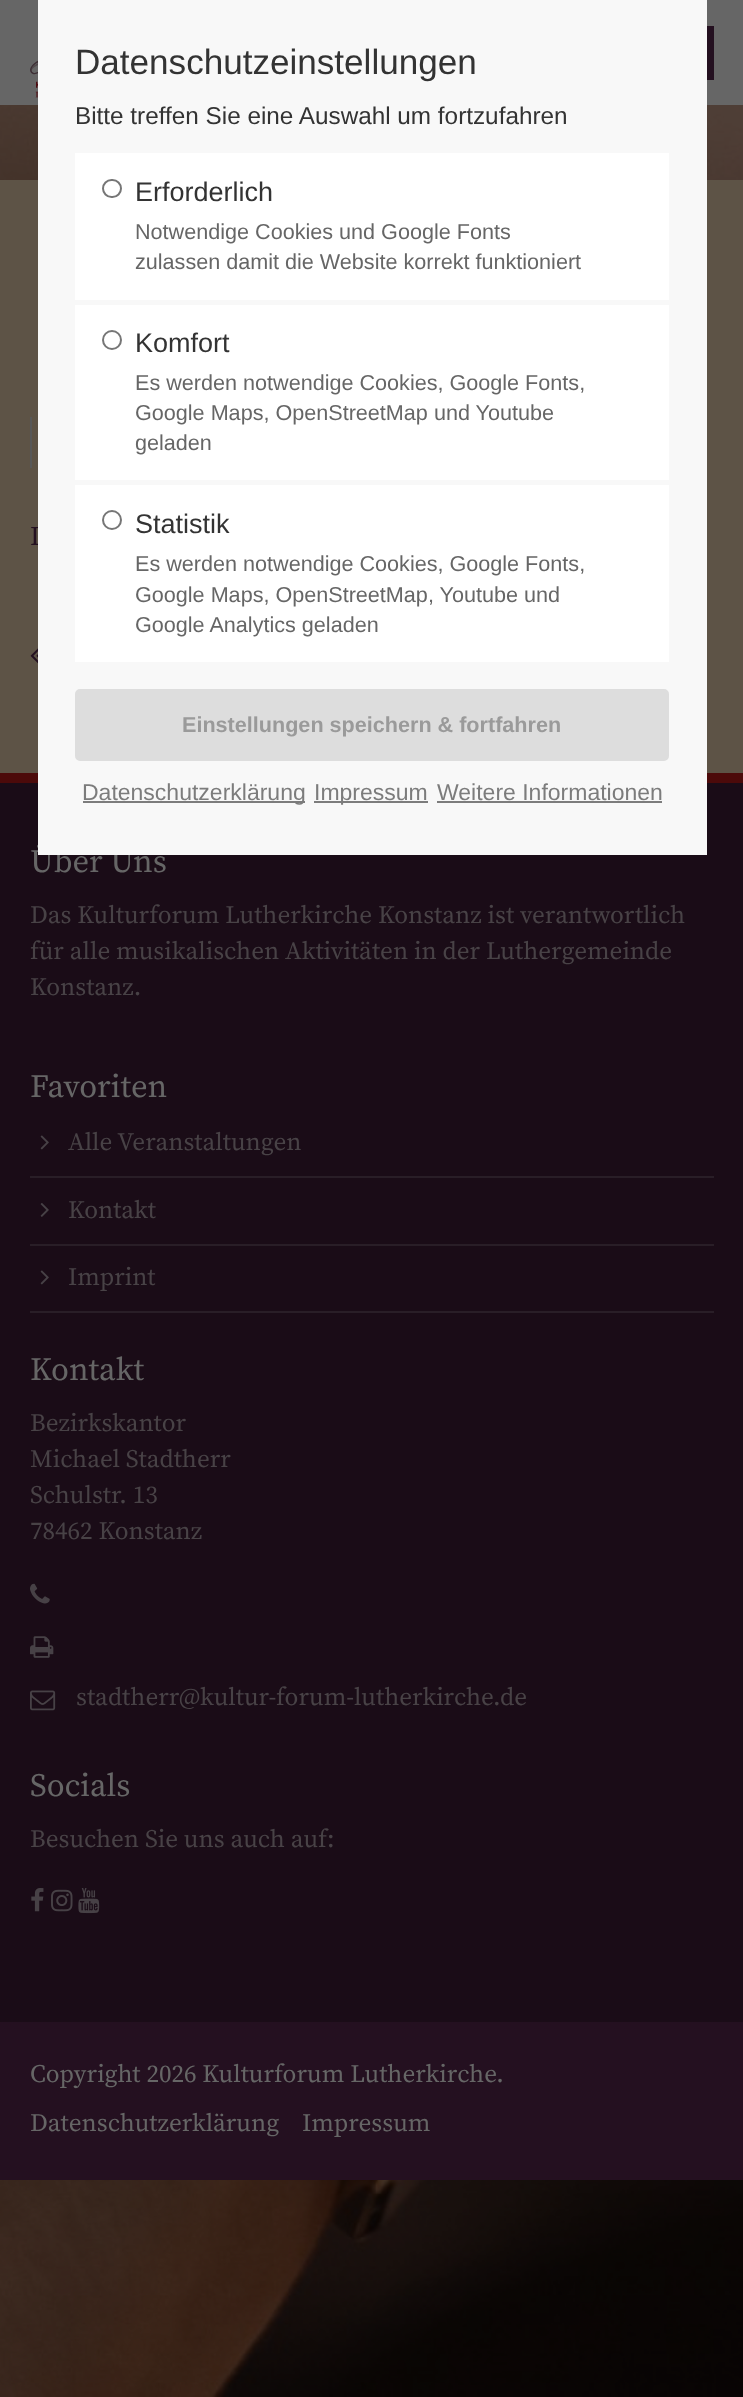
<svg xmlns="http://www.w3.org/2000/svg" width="743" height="2397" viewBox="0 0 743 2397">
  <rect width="100%" height="100%" fill="#ffffff"/>
  <image x="0" y="105" width="743" height="2292" href="img1.png"/>
  <rect x="0" y="0" width="743" height="105" fill="#666666"/>
  <image x="30" y="60" width="8" height="38" href="img2.png"/>
  <rect x="707" y="26" width="7" height="54" fill="#241020"/>
  <rect x="0" y="180" width="743" height="593" fill="#5d5346"/>
  <text x="30" y="545" font-family="Source Serif Pro" font-size="27" fill="#241020">L</text>
  <rect x="0" y="783" width="743" height="1239" fill="#1a0c17"/>
  <rect x="0" y="773" width="743" height="10" fill="#4c0a0a"/>
  <text x="30" y="872" font-family="Source Serif Pro" font-size="32.5" fill="#666666">Über Uns</text>
  <rect x="38" y="0" width="669" height="855" fill="#f8f8f8"/>
  <text x="75" y="74" font-family="Liberation Sans" font-size="35.1" fill="#333333">Datenschutzeinstellungen</text>
  <text x="75" y="124" font-family="Liberation Sans" font-size="24.3" fill="#333333">Bitte treffen Sie eine Auswahl um fortzufahren</text>
  <rect x="75" y="153" width="594" height="147" fill="#ffffff"/>
  <rect x="103" y="180" width="18" height="17" rx="8.5" fill="none" stroke="#767676" stroke-width="2"/>
  <text x="135" y="201" font-family="Liberation Sans" font-size="27" fill="#333333">Erforderlich</text>
  <text x="135" y="239" font-family="Liberation Sans" font-size="21.6" fill="#666666">Notwendige Cookies und Google Fonts</text>
  <text x="135" y="269" font-family="Liberation Sans" font-size="21.6" fill="#666666">zulassen damit die Website korrekt funktioniert</text>
  <rect x="75" y="305" width="594" height="175" fill="#ffffff"/>
  <circle cx="112" cy="340" r="9" fill="none" stroke="#767676" stroke-width="2"/>
  <text x="135" y="352" font-family="Liberation Sans" font-size="27" fill="#333333">Komfort</text>
  <text x="135" y="390" font-family="Liberation Sans" font-size="21.6" fill="#666666">Es werden notwendige Cookies, Google Fonts,</text>
  <text x="135" y="420" font-family="Liberation Sans" font-size="21.6" fill="#666666">Google Maps, OpenStreetMap und Youtube</text>
  <text x="135" y="450" font-family="Liberation Sans" font-size="21.6" fill="#666666">geladen</text>
  <rect x="75" y="485" width="594" height="177" fill="#ffffff"/>
  <circle cx="112" cy="520" r="9" fill="none" stroke="#767676" stroke-width="2"/>
  <text x="135" y="533" font-family="Liberation Sans" font-size="27" fill="#333333">Statistik</text>
  <text x="135" y="571" font-family="Liberation Sans" font-size="21.6" fill="#666666">Es werden notwendige Cookies, Google Fonts,</text>
  <text x="135" y="602" font-family="Liberation Sans" font-size="21.6" fill="#666666">Google Maps, OpenStreetMap, Youtube und</text>
  <text x="135" y="632" font-family="Liberation Sans" font-size="21.6" fill="#666666">Google Analytics geladen</text>
  <rect x="76" y="690" width="592" height="70" rx="4" fill="#dddddd" stroke="#dddddd" stroke-width="2"/>
  <text x="182" y="732" font-family="Liberation Sans" font-size="21.6" font-weight="bold" fill="#9a9a9a">Einstellungen speichern &amp; fortfahren</text>
  <rect x="83" y="801" width="222" height="2" fill="#7c7c7c"/>
  <text x="82" y="800" font-family="Liberation Sans" font-size="23" fill="#7c7c7c">Datenschutzerklärung</text>
  <rect x="314" y="801" width="114" height="2" fill="#7c7c7c"/>
  <text x="314" y="800" font-family="Liberation Sans" font-size="23" fill="#7c7c7c">Impressum</text>
  <text x="437" y="800" font-family="Liberation Sans" font-size="23" fill="#7c7c7c">Weitere Informationen</text>
  <rect x="437" y="801" width="225" height="2" fill="#7c7c7c"/>
  <rect x="30" y="417" width="2" height="51" fill="#585858"/>
  <image x="30" y="648" width="8" height="16" href="img3.png"/>
  <text x="30" y="923" font-family="Source Serif Pro" font-size="25.1" fill="#484246">Das Kulturforum Lutherkirche Konstanz ist verantwortlich</text>
  <text x="30" y="959" font-family="Source Serif Pro" font-size="25.1" fill="#484246">für alle musikalischen Aktivitäten in der Luthergemeinde</text>
  <text x="30" y="995" font-family="Source Serif Pro" font-size="25.1" fill="#484246">Konstanz.</text>
  <text x="30" y="1097" font-family="Source Serif Pro" font-size="32.5" fill="#666666">Favoriten</text>
  <image x="40" y="1135" width="9" height="15" href="img4.png"/>
  <text x="68" y="1150" font-family="Source Serif Pro" font-size="25.1" fill="#484246">Alle Veranstaltungen</text>
  <rect x="30" y="1176" width="684" height="2" fill="#291e27"/>
  <image x="40" y="1203" width="9" height="14" href="img5.png"/>
  <text x="68" y="1218" font-family="Source Serif Pro" font-size="25.1" fill="#484246">Kontakt</text>
  <rect x="30" y="1244" width="684" height="2" fill="#291e27"/>
  <image x="40" y="1270" width="9" height="15" href="img4.png"/>
  <text x="68" y="1285" font-family="Source Serif Pro" font-size="25.1" fill="#484246">Imprint</text>
  <rect x="30" y="1311" width="684" height="2" fill="#291e27"/>
  <text x="30" y="1380" font-family="Source Serif Pro" font-size="32.5" fill="#666666">Kontakt</text>
  <text x="30" y="1431" font-family="Source Serif Pro" font-size="25.1" fill="#484246">Bezirkskantor</text>
  <text x="30" y="1467" font-family="Source Serif Pro" font-size="25.1" fill="#484246">Michael Stadtherr</text>
  <text x="30" y="1503" font-family="Source Serif Pro" font-size="25.1" fill="#484246">Schulstr. 13</text>
  <text x="30" y="1539" font-family="Source Serif Pro" font-size="25.1" fill="#484246">78462 Konstanz</text>
  <image x="30" y="1583" width="20" height="21" href="img6.png"/>
  <image x="30" y="1636" width="24" height="22" href="img7.png"/>
  <image x="30" y="1690" width="26" height="21" href="img8.png"/>
  <text x="76" y="1705" font-family="Source Serif Pro" font-size="25.1" fill="#484246">stadtherr@kultur-forum-lutherkirche.de</text>
  <text x="30" y="1796" font-family="Source Serif Pro" font-size="32.5" fill="#666666">Socials</text>
  <text x="30" y="1847" font-family="Source Serif Pro" font-size="25.1" fill="#484246">Besuchen Sie uns auch auf:</text>
  <image x="31" y="1888" width="13" height="24" href="img9.png"/>
  <image x="51" y="1889" width="22" height="23" href="img10.png"/>
  <image x="78" y="1888" width="22" height="26" href="img11.png"/>
  <rect x="0" y="2022" width="743" height="158" fill="#241020"/>
  <text x="30" y="2082" font-family="Source Serif Pro" font-size="25.1" fill="#666666">Copyright 2026 Kulturforum Lutherkirche.</text>
  <text x="30" y="2131" font-family="Source Serif Pro" font-size="25.1" fill="#666666">Datenschutzerklärung</text>
  <text x="302" y="2131" font-family="Source Serif Pro" font-size="25.1" fill="#666666">Impressum</text>
</svg>
